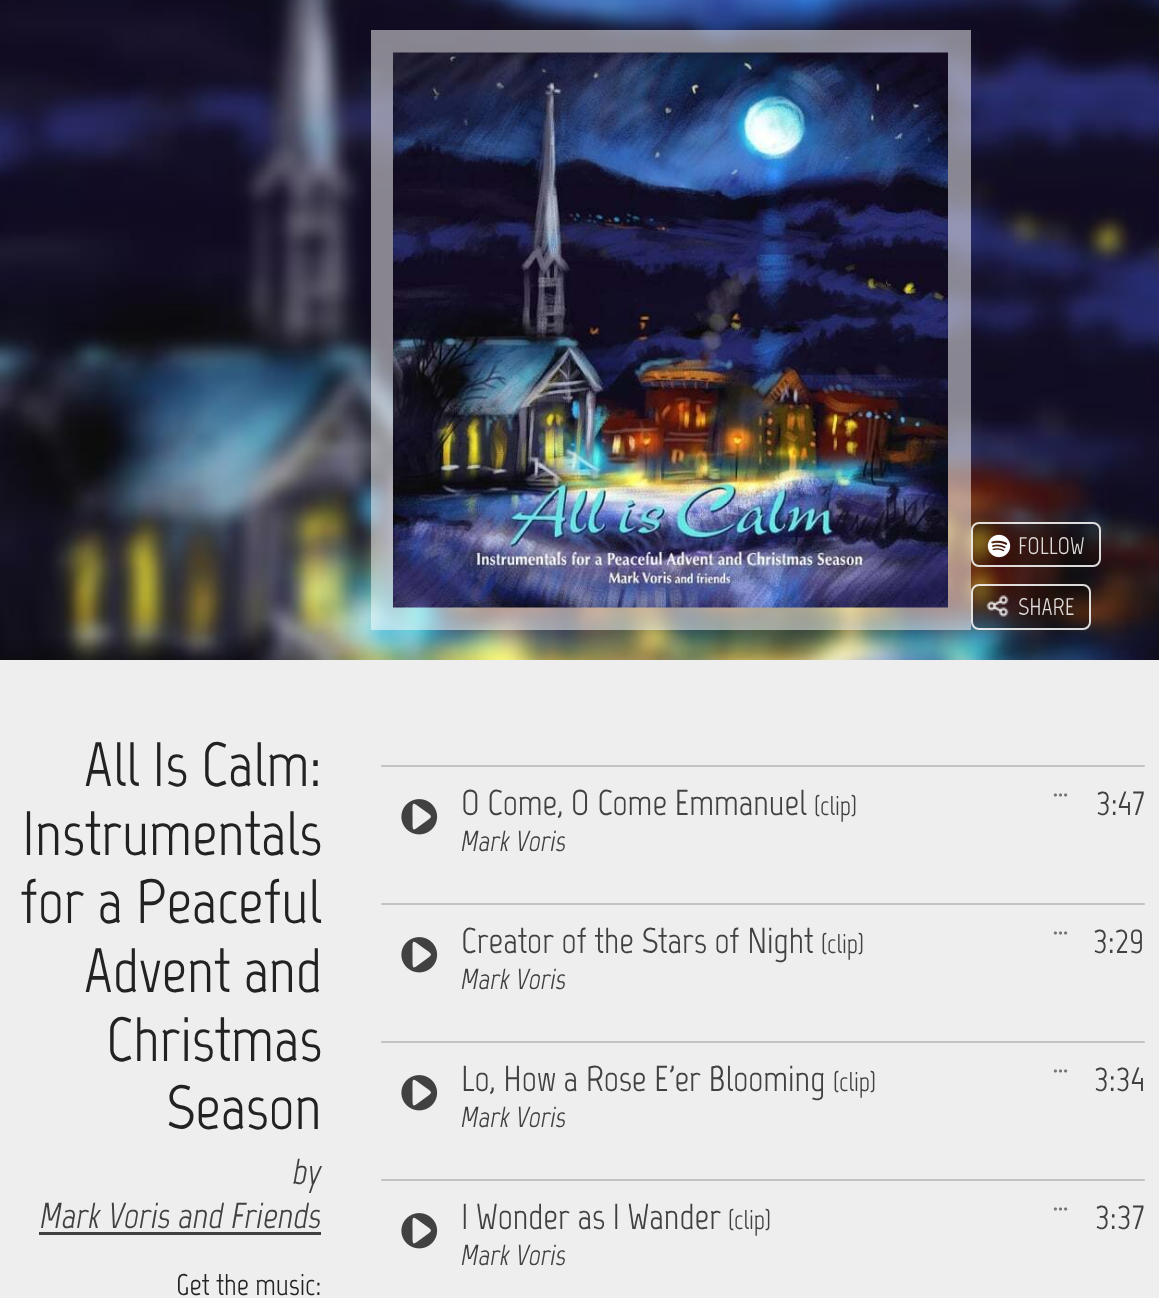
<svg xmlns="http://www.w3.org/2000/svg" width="1159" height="1298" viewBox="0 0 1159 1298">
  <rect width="100%" height="100%" fill="#eeeeee"/>
  <image x="0" y="0" width="1159" height="660" href="img1.png"/>
  <rect x="371" y="30" width="600" height="600" fill="#ffffff" fill-opacity="0.5"/>
  <image x="393" y="52" width="555" height="556" href="img2.png"/>
  <rect x="971" y="522" width="130" height="45" rx="8" fill="#000000" fill-opacity="0.25"/>
  <rect x="972" y="523" width="128" height="43" rx="7" fill="none" stroke="#ffffff" stroke-opacity="0.85" stroke-width="2"/>
  <image x="987" y="534" width="24" height="24" href="img3.png"/>
  <text x="1018" y="554" font-family="Marvel" font-size="24" fill="#dfdcdb">FOLLOW</text>
  <rect x="971" y="584" width="120" height="46" rx="8" fill="#000000" fill-opacity="0.25"/>
  <rect x="972" y="585" width="118" height="44" rx="7" fill="none" stroke="#ffffff" stroke-opacity="0.85" stroke-width="2"/>
  <image x="986" y="595" width="23" height="22" href="img4.png"/>
  <text x="1018" y="615" font-family="Marvel" font-size="24" fill="#dfdcdb">SHARE</text>
  <text x="84" y="786" font-family="Marvel" font-size="62.5" fill="#222222">All Is Calm:</text>
  <text x="22" y="855" font-family="Marvel" font-size="62.5" fill="#222222">Instrumentals</text>
  <text x="20" y="923" font-family="Marvel" font-size="62.5" fill="#222222">for a Peaceful</text>
  <text x="84" y="992" font-family="Marvel" font-size="62.5" fill="#222222">Advent and</text>
  <text x="106" y="1061" font-family="Marvel" font-size="62.5" fill="#222222">Christmas</text>
  <text x="166" y="1129" font-family="Marvel" font-size="62.5" fill="#222222">Season</text>
  <text x="293" y="1184" font-family="Marvel" font-size="36" font-style="italic" fill="#414141">by</text>
  <text x="40" y="1228" font-family="Marvel" font-size="36" font-style="italic" fill="#414141">Mark Voris and Friends</text>
  <rect x="39" y="1232" width="282" height="3" fill="#414141"/>
  <text x="176" y="1295" font-family="Marvel" font-size="30" fill="#222222">Get the music:</text>
  <rect x="381" y="765" width="764" height="2" rx="1" fill="#c3c3c3"/>
  <image x="401" y="799" width="37" height="36" href="img5.png"/>
  <text x="461" y="815" font-family="Marvel" font-size="36" fill="#414141">O Come, O Come Emmanuel</text>
  <text x="814" y="815" font-family="Marvel" font-size="27" fill="#414141">(clip)</text>
  <image x="1053" y="793" width="15" height="4" href="img6.png"/>
  <text x="1096" y="815" font-family="Marvel" font-size="36" fill="#414141">3:47</text>
  <text x="461" y="851" font-family="Marvel" font-size="29" font-style="italic" fill="#414141">Mark Voris</text>
  <rect x="381" y="903" width="764" height="2" rx="1" fill="#c3c3c3"/>
  <image x="401" y="937" width="37" height="36" href="img5.png"/>
  <text x="461" y="953" font-family="Marvel" font-size="36" fill="#414141">Creator of the Stars of Night</text>
  <text x="821" y="953" font-family="Marvel" font-size="27" fill="#414141">(clip)</text>
  <image x="1053" y="931" width="15" height="4" href="img6.png"/>
  <text x="1093" y="953" font-family="Marvel" font-size="36" fill="#414141">3:29</text>
  <text x="461" y="989" font-family="Marvel" font-size="29" font-style="italic" fill="#414141">Mark Voris</text>
  <rect x="381" y="1041" width="764" height="2" rx="1" fill="#c3c3c3"/>
  <image x="401" y="1075" width="37" height="36" href="img5.png"/>
  <text x="461" y="1091" font-family="Marvel" font-size="36" fill="#414141">Lo, How a Rose E'er Blooming</text>
  <text x="833" y="1091" font-family="Marvel" font-size="27" fill="#414141">(clip)</text>
  <image x="1053" y="1069" width="15" height="4" href="img6.png"/>
  <text x="1094" y="1091" font-family="Marvel" font-size="36" fill="#414141">3:34</text>
  <text x="461" y="1127" font-family="Marvel" font-size="29" font-style="italic" fill="#414141">Mark Voris</text>
  <rect x="381" y="1179" width="764" height="2" rx="1" fill="#c3c3c3"/>
  <image x="401" y="1213" width="37" height="36" href="img5.png"/>
  <text x="461" y="1229" font-family="Marvel" font-size="36" fill="#414141">I Wonder as I Wander</text>
  <text x="728" y="1229" font-family="Marvel" font-size="27" fill="#414141">(clip)</text>
  <image x="1053" y="1207" width="15" height="4" href="img6.png"/>
  <text x="1095" y="1229" font-family="Marvel" font-size="36" fill="#414141">3:37</text>
  <text x="461" y="1265" font-family="Marvel" font-size="29" font-style="italic" fill="#414141">Mark Voris</text>
</svg>
